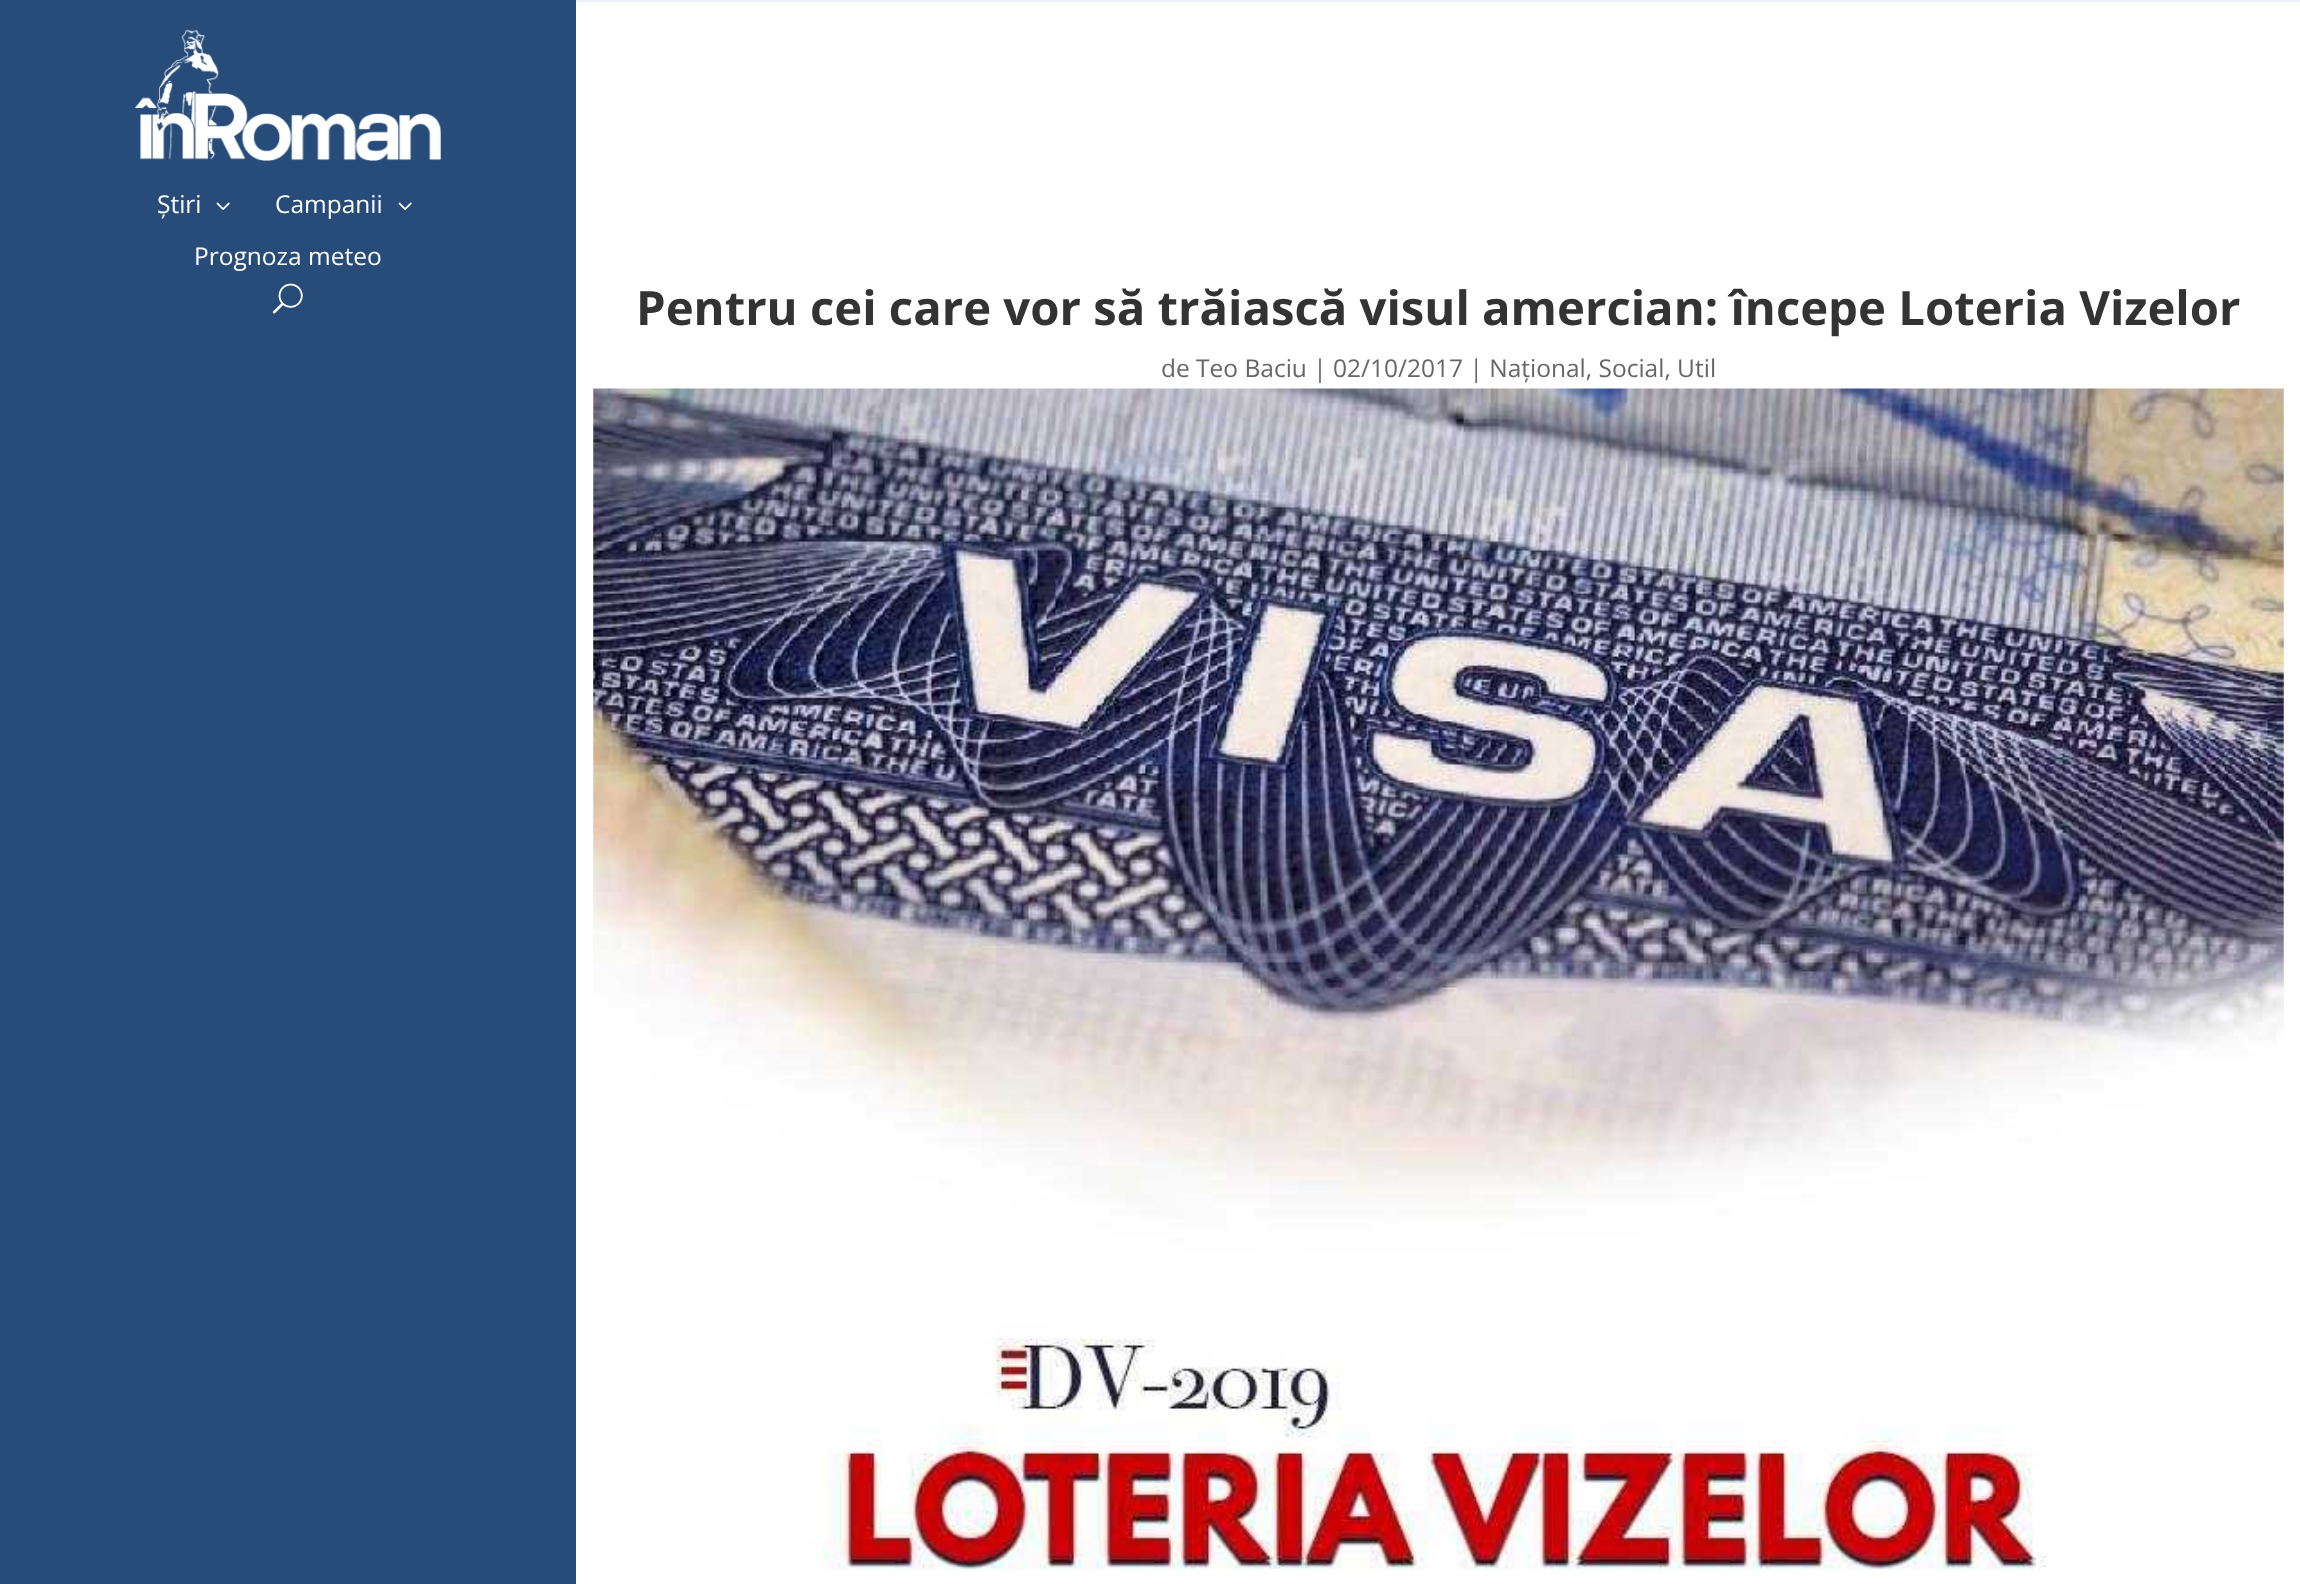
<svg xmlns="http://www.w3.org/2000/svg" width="2300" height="1584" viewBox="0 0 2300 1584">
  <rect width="100%" height="100%" fill="#ecf0f5"/>
  <rect x="0" y="0" width="576" height="1584" fill="#274c7a"/>
  <image x="134" y="29" width="307" height="132" href="img1.png"/>
  <text x="157" y="213" font-family="Open Sans" font-size="24.5" fill="#ffffff">Știri</text>
  <image x="216" y="202" width="14" height="8" href="img2.png"/>
  <text x="275" y="213" font-family="Open Sans" font-size="24.5" fill="#ffffff">Campanii</text>
  <image x="398" y="202" width="14" height="8" href="img2.png"/>
  <text x="194" y="265" font-family="Open Sans" font-size="24.5" fill="#ffffff">Prognoza meteo</text>
  <image x="272" y="283" width="31" height="31" href="img3.png"/>
  <rect x="576" y="2" width="1724" height="1582" fill="#ffffff"/>
  <text x="636" y="325" font-family="Open Sans" font-size="47.25" font-weight="bold" fill="#333333">Pentru cei care vor să trăiască visul amercian: începe Loteria Vizelor</text>
  <text x="1161" y="377" font-family="Open Sans" font-size="24.5" fill="#666666">de Teo Baciu | 02/10/2017 | Național, Social, Util</text>
  <image x="593" y="388" width="1691" height="1183" href="img4.png"/>
</svg>
